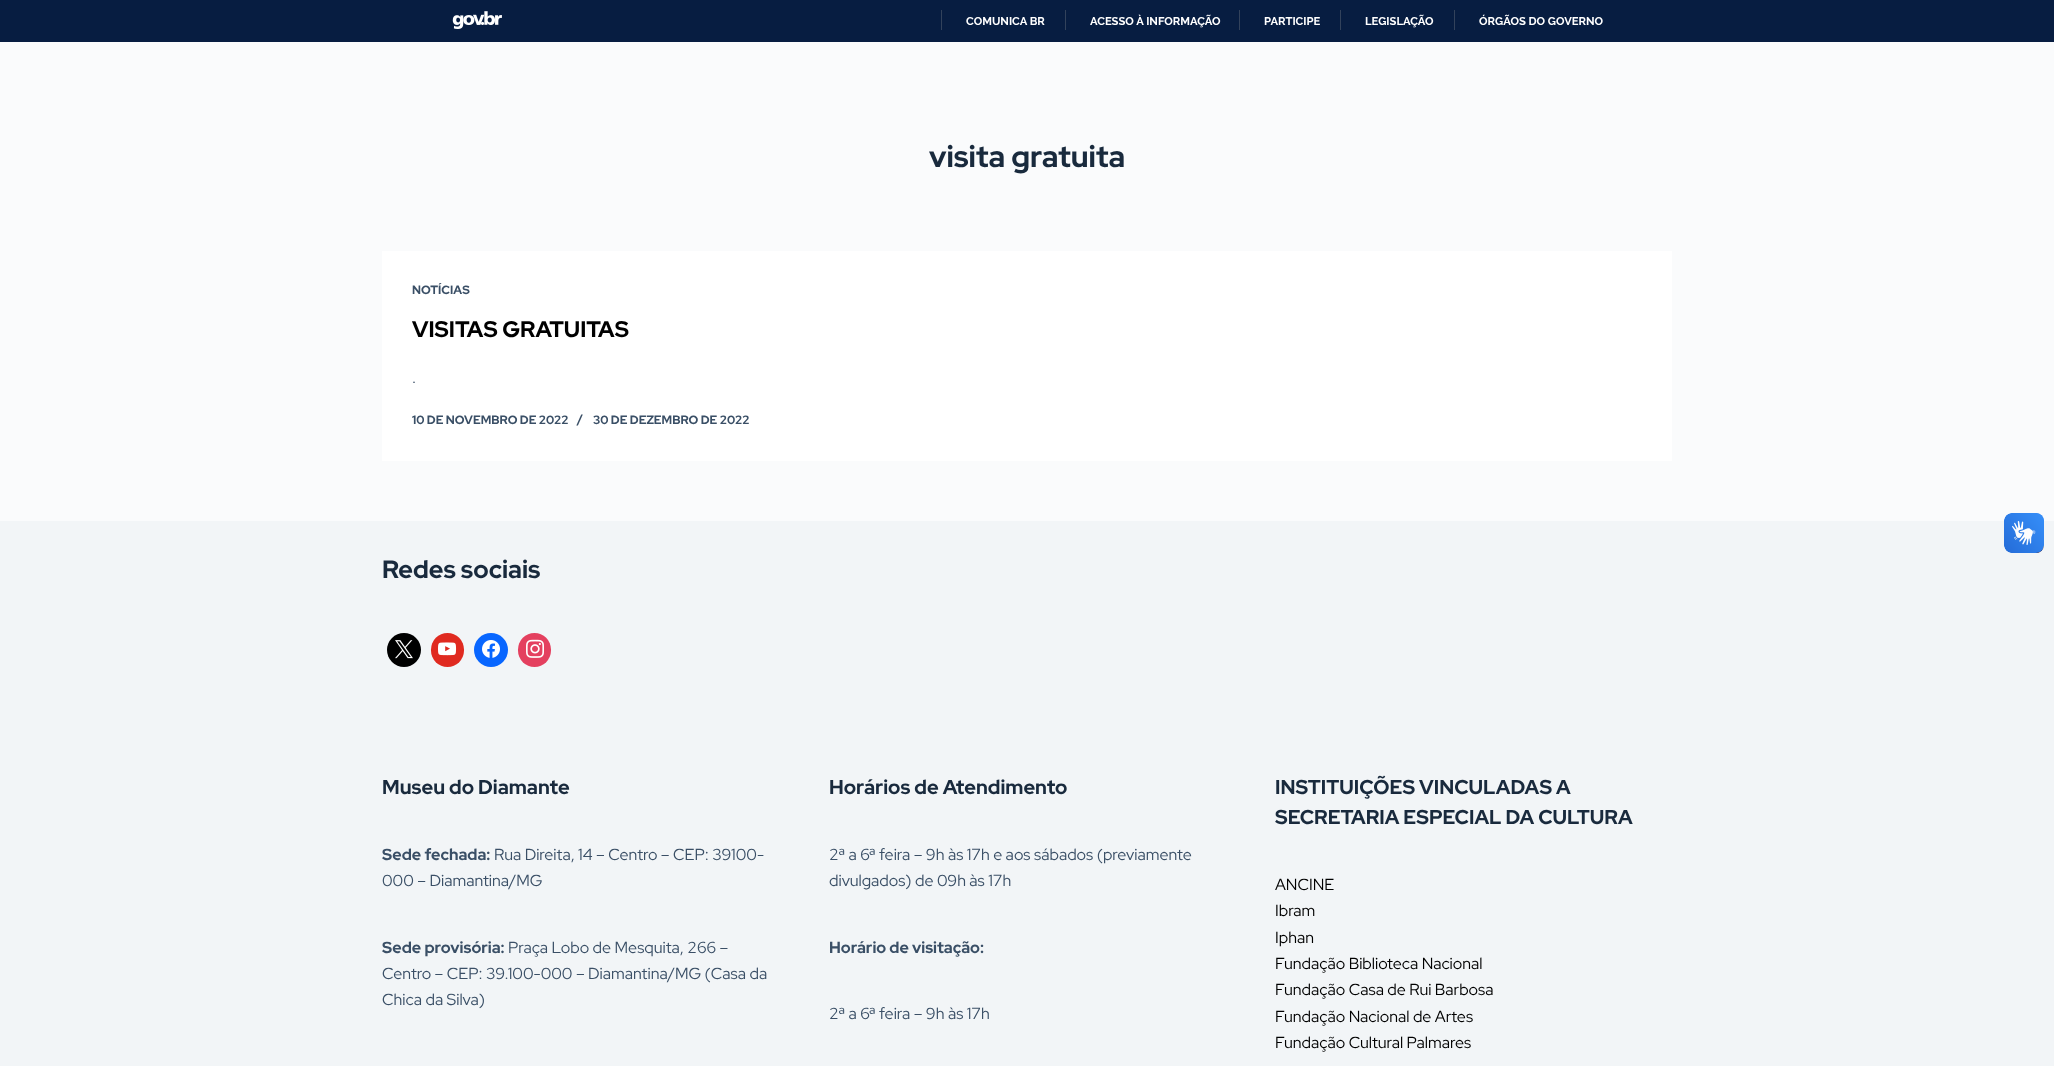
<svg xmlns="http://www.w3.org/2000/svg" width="2054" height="1066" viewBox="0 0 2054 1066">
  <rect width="100%" height="100%" fill="#fafbfc"/>
  <rect x="0" y="0" width="2054" height="42" fill="#071d41"/>
  <image x="452" y="11" width="50" height="18" href="img1.png"/>
  <rect x="941" y="10" width="1" height="20" fill="#32425b"/>
  <text x="966" y="25" font-family="Raleway" font-size="11.25" font-weight="bold" fill="#ffffff">COMUNICA BR</text>
  <rect x="1065" y="10" width="1" height="20" fill="#32425b"/>
  <text x="1090" y="25" font-family="Raleway" font-size="11.25" font-weight="bold" fill="#ffffff">ACESSO À INFORMAÇÃO</text>
  <rect x="1239" y="10" width="1" height="20" fill="#32425b"/>
  <text x="1264" y="25" font-family="Raleway" font-size="11.25" font-weight="bold" fill="#ffffff">PARTICIPE</text>
  <rect x="1340" y="10" width="1" height="20" fill="#32425b"/>
  <text x="1365" y="25" font-family="Raleway" font-size="11.25" font-weight="bold" fill="#ffffff">LEGISLAÇÃO</text>
  <rect x="1454" y="10" width="1" height="20" fill="#32425b"/>
  <text x="1479" y="25" font-family="Raleway" font-size="11.25" font-weight="bold" fill="#ffffff">ÓRGÃOS DO GOVERNO</text>
  <text x="929" y="167" font-family="Red Hat Display" font-size="30" font-weight="bold" fill="#192a3d">visita gratuita</text>
  <rect x="382" y="251" width="1290" height="210" fill="#ffffff"/>
  <text x="412" y="294" font-family="Red Hat Display" font-size="12" font-weight="bold" fill="#3a4f66">NOTÍCIAS</text>
  <text x="412" y="337" font-family="Red Hat Display" font-size="22.5" font-weight="bold" fill="#000000">VISITAS GRATUITAS</text>
  <text x="412" y="383" font-family="Red Hat Display" font-size="16" fill="#3a4f66">.</text>
  <text x="412" y="424" font-family="Red Hat Display" font-size="12" font-weight="bold" fill="#3a4f66">10 DE NOVEMBRO DE 2022</text>
  <text x="577" y="423" font-family="Red Hat Display" font-size="12" font-weight="bold" fill="#3a4f66">/</text>
  <text x="593" y="424" font-family="Red Hat Display" font-size="12" font-weight="bold" fill="#3a4f66">30 DE DEZEMBRO DE 2022</text>
  <rect x="0" y="521" width="2054" height="545" fill="#f2f5f7"/>
  <text x="382" y="578" font-family="Red Hat Display" font-size="25" font-weight="bold" fill="#192a3d">Redes sociais</text>
  <circle cx="404" cy="650" r="17" fill="#000000"/>
  <image x="395" y="640" width="18" height="19" href="img2.png"/>
  <rect x="431" y="633" width="33" height="34" rx="16.5" fill="#e02a20"/>
  <image x="438" y="642" width="19" height="14" href="img3.png"/>
  <circle cx="491" cy="650" r="17" fill="#0866ff"/>
  <image x="482" y="640" width="18" height="18" href="img4.png"/>
  <rect x="518" y="633" width="33" height="34" rx="16.5" fill="#e4405f"/>
  <image x="526" y="639" width="18" height="19" href="img5.png"/>
  <text x="382" y="794" font-family="Red Hat Display" font-size="20" font-weight="bold" fill="#192a3d">Museu do Diamante</text>
  <text x="382" y="860" font-family="Red Hat Display" font-size="16" font-weight="bold" fill="#3a4f66">Sede fechada:</text>
  <text x="494" y="860" font-family="Red Hat Display" font-size="16" fill="#3a4f66">Rua Direita, 14 – Centro – CEP: 39100-</text>
  <text x="382" y="886" font-family="Red Hat Display" font-size="16" fill="#3a4f66">000 – Diamantina/MG</text>
  <text x="382" y="953" font-family="Red Hat Display" font-size="16" font-weight="bold" fill="#3a4f66">Sede provisória:</text>
  <text x="508" y="953" font-family="Red Hat Display" font-size="16" fill="#3a4f66">Praça Lobo de Mesquita, 266 –</text>
  <text x="382" y="979" font-family="Red Hat Display" font-size="16" fill="#3a4f66">Centro – CEP: 39.100-000 – Diamantina/MG (Casa da</text>
  <text x="382" y="1005" font-family="Red Hat Display" font-size="16" fill="#3a4f66">Chica da Silva)</text>
  <text x="829" y="794" font-family="Red Hat Display" font-size="20" font-weight="bold" fill="#192a3d">Horários de Atendimento</text>
  <text x="829" y="860" font-family="Red Hat Display" font-size="16" fill="#3a4f66">2ª a 6ª feira – 9h às 17h e aos sábados (previamente</text>
  <text x="829" y="886" font-family="Red Hat Display" font-size="16" fill="#3a4f66">divulgados) de 09h às 17h</text>
  <text x="829" y="953" font-family="Red Hat Display" font-size="16" font-weight="bold" fill="#3a4f66">Horário de visitação:</text>
  <text x="829" y="1019" font-family="Red Hat Display" font-size="16" fill="#3a4f66">2ª a 6ª feira – 9h às 17h</text>
  <text x="1275" y="794" font-family="Red Hat Display" font-size="20" font-weight="bold" fill="#192a3d">INSTITUIÇÕES VINCULADAS A</text>
  <text x="1275" y="824" font-family="Red Hat Display" font-size="20" font-weight="bold" fill="#192a3d">SECRETARIA ESPECIAL DA CULTURA</text>
  <text x="1275" y="890" font-family="Red Hat Display" font-size="16" fill="#000000">ANCINE</text>
  <text x="1275" y="916" font-family="Red Hat Display" font-size="16" fill="#000000">Ibram</text>
  <text x="1275" y="943" font-family="Red Hat Display" font-size="16" fill="#000000">Iphan</text>
  <text x="1275" y="969" font-family="Red Hat Display" font-size="16" fill="#000000">Fundação Biblioteca Nacional</text>
  <text x="1275" y="995" font-family="Red Hat Display" font-size="16" fill="#000000">Fundação Casa de Rui Barbosa</text>
  <text x="1275" y="1022" font-family="Red Hat Display" font-size="16" fill="#000000">Fundação Nacional de Artes</text>
  <text x="1275" y="1048" font-family="Red Hat Display" font-size="16" fill="#000000">Fundação Cultural Palmares</text>
  <image x="2004" y="513" width="40" height="40" href="img6.png"/>
  <image x="2004" y="513" width="40" height="40" href="img7.png"/>
</svg>
